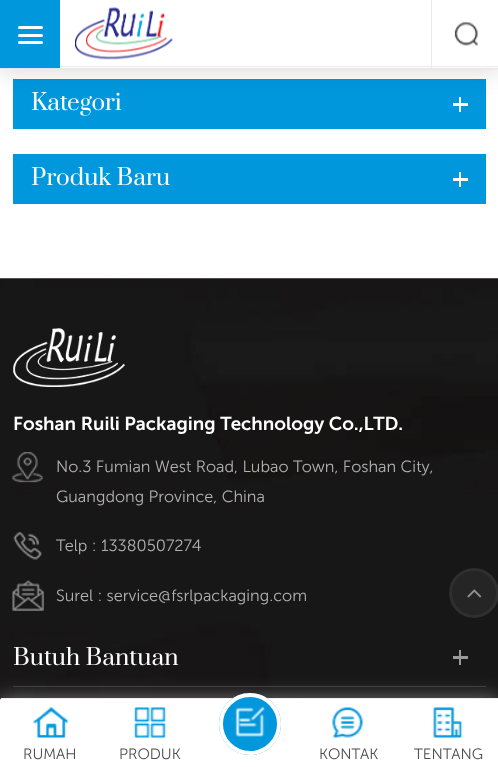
<svg xmlns="http://www.w3.org/2000/svg" width="498" height="767" viewBox="0 0 498 767">
  <defs>
    <filter id="blur1" x="-50%" y="-200%" width="200%" height="500%"><feGaussianBlur stdDeviation="12.5"/></filter>
    <filter id="blur2" x="-50%" y="-200%" width="200%" height="500%"><feGaussianBlur stdDeviation="9.5"/></filter>
  </defs>
  <rect width="100%" height="100%" fill="#ffffff"/>
  <rect x="13" y="79" width="473" height="50" fill="#0097dc"/>
  <rect x="453" y="103" width="15" height="3" fill="#ffffff"/>
  <rect x="459" y="97" width="2" height="15" fill="#ffffff"/>
  <rect x="-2" y="-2" width="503" height="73" fill="#000000" fill-opacity="0.15" filter="url(#blur1)"/>
  <rect x="60" y="0" width="438" height="68" fill="#ffffff"/>
  <rect x="0" y="68" width="498" height="1" fill="#e5e5e5"/>
  <rect x="60" y="66" width="438" height="1" fill="#ebebeb"/>
  <rect x="0" y="0" width="60" height="68" fill="#0097dc"/>
  <rect x="18" y="34" width="25" height="3" rx="1.5" fill="#ffffff"/>
  <rect x="18" y="26" width="25" height="3" rx="1.5" fill="#ffffff"/>
  <rect x="18" y="41" width="25" height="3" rx="1.5" fill="#ffffff"/>
  <image x="75" y="7" width="98" height="53" href="img1.png"/>
  <rect x="431" y="0" width="1" height="68" fill="#ebebeb"/>
  <image x="454" y="21" width="24" height="25" href="img2.png"/>
  <text x="31" y="110" font-family="Prata" font-size="22.5" fill="#ffffff">Kategori</text>
  <rect x="13" y="154" width="473" height="50" fill="#0097dc"/>
  <text x="31" y="185" font-family="Prata" font-size="22.5" fill="#ffffff">Produk Baru</text>
  <rect x="453" y="178" width="15" height="3" fill="#ffffff"/>
  <rect x="459" y="172" width="2" height="15" fill="#ffffff"/>
  <image x="0" y="278" width="498" height="423" href="img3.png"/>
  <image x="13" y="328" width="112" height="59" href="img4.png"/>
  <text x="13" y="430" font-family="Museo Sans" font-size="18.75" font-weight="600" fill="#ffffff">Foshan Ruili Packaging Technology Co.,LTD.</text>
  <image x="12" y="452" width="31" height="31" href="img5.png"/>
  <text x="56" y="472" font-family="Museo Sans" font-size="16.25" font-weight="300" fill="#b2b2b2">No.3 Fumian West Road, Lubao Town, Foshan City,</text>
  <text x="56" y="502" font-family="Museo Sans" font-size="16.25" font-weight="300" fill="#b2b2b2">Guangdong Province, China</text>
  <image x="13" y="531" width="29" height="29" href="img6.png"/>
  <text x="56" y="551" font-family="Museo Sans" font-size="16.25" font-weight="300" fill="#b2b2b2">Telp : 13380507274</text>
  <image x="12" y="580" width="32" height="31" href="img7.png"/>
  <text x="56" y="601" font-family="Museo Sans" font-size="16.25" font-weight="300" fill="#b2b2b2">Surel : service@fsrlpackaging.com</text>
  <rect x="13" y="686" width="473" height="1" fill="#ffffff" fill-opacity="0.15"/>
  <text x="13" y="665" font-family="Prata" font-size="22.5" fill="#ffffff">Butuh Bantuan</text>
  <rect x="453" y="656" width="15" height="3" fill="#999999"/>
  <rect x="459" y="650" width="2" height="15" fill="#999999"/>
  <circle cx="474" cy="593" r="25" fill="#252525"/>
  <circle cx="474" cy="593" r="23.5" fill="none" stroke="#8a8a8a" stroke-opacity="0.1" stroke-width="3"/>
  <image x="467" y="589" width="15" height="9" href="img8.png"/>
  <rect x="0" y="698" width="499" height="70" rx="2.5" fill="#ffffff" fill-opacity="0.4" filter="url(#blur2)"/>
  <path d="M2.5 698H496.5C498 698 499 699 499 700.5V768H0V700.5C0 699 1 698 2.5 698Z" fill="#ffffff"/>
  <rect x="1" y="698" width="497" height="1" fill="#eeeeee"/>
  <circle cx="250" cy="724" r="31" fill="#0097dc"/>
  <image x="235" y="706" width="30" height="31" href="img9.png"/>
  <circle cx="250" cy="724" r="29" fill="none" stroke="#ffffff" stroke-width="4"/>
  <image x="33" y="707" width="36" height="31" href="img10.png"/>
  <text x="23" y="759" font-family="Museo Sans" font-size="15" font-weight="300" fill="#4d4d4d">RUMAH</text>
  <image x="134" y="707" width="32" height="31" href="img11.png"/>
  <text x="119" y="759" font-family="Museo Sans" font-size="15" font-weight="300" fill="#4d4d4d">PRODUK</text>
  <image x="332" y="707" width="32" height="31" href="img12.png"/>
  <text x="319" y="759" font-family="Museo Sans" font-size="15" font-weight="300" fill="#4d4d4d">KONTAK</text>
  <image x="433" y="707" width="30" height="31" href="img13.png"/>
  <text x="414" y="759" font-family="Museo Sans" font-size="15" font-weight="300" fill="#4d4d4d">TENTANG</text>
</svg>
